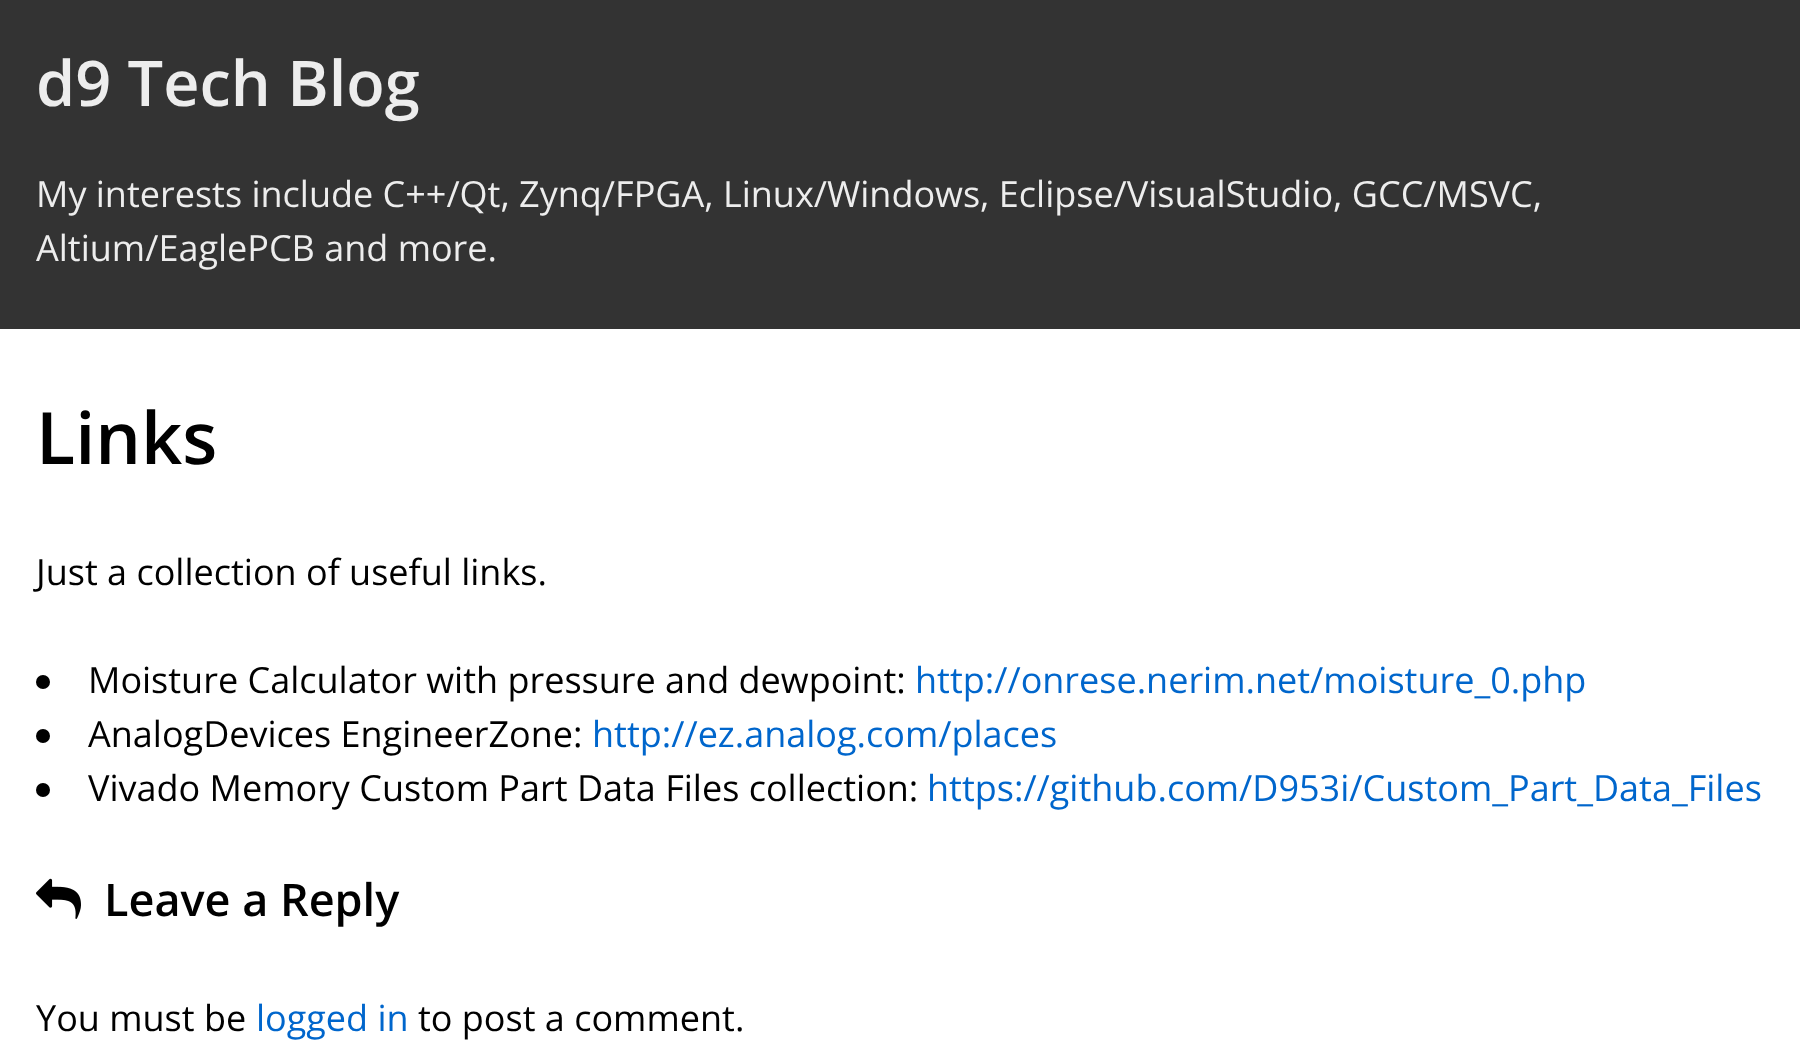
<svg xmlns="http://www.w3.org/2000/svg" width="1800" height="1058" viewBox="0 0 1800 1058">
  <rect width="100%" height="100%" fill="#ffffff"/>
  <rect x="0" y="0" width="1800" height="329" fill="#333333"/>
  <text x="36" y="106" font-family="Open Sans" font-size="63" font-weight="600" fill="#ededed">d9 Tech Blog</text>
  <text x="36" y="207" font-family="Open Sans" font-size="36" fill="#ededed">My interests include C++/Qt, Zynq/FPGA, Linux/Windows, Eclipse/VisualStudio, GCC/MSVC,</text>
  <text x="36" y="261" font-family="Open Sans" font-size="36" fill="#ededed">Altium/EaglePCB and more.</text>
  <text x="36" y="464" font-family="Open Sans" font-size="72" font-weight="600" fill="#000000">Links</text>
  <text x="36" y="585" font-family="Open Sans" font-size="36" fill="#000000">Just a collection of useful links.</text>
  <circle cx="43" cy="682" r="7" fill="#000000"/>
  <text x="88" y="693" font-family="Open Sans" font-size="36" fill="#000000">Moisture Calculator with pressure and dewpoint:</text>
  <text x="915" y="693" font-family="Open Sans" font-size="36" fill="#0066cc">http://onrese.nerim.net/moisture_0.php</text>
  <circle cx="43" cy="736" r="7" fill="#000000"/>
  <text x="88" y="747" font-family="Open Sans" font-size="36" fill="#000000">AnalogDevices EngineerZone:</text>
  <text x="592" y="747" font-family="Open Sans" font-size="36" fill="#0066cc">http://ez.analog.com/places</text>
  <circle cx="43" cy="790" r="7" fill="#000000"/>
  <text x="88" y="801" font-family="Open Sans" font-size="36" fill="#000000">Vivado Memory Custom Part Data Files collection:</text>
  <text x="927" y="801" font-family="Open Sans" font-size="36" fill="#0066cc">https://github.com/D953i/Custom_Part_Data_Files</text>
  <image x="36" y="878" width="45" height="41" href="img1.png"/>
  <text x="104" y="916" font-family="Open Sans" font-size="45" font-weight="600" fill="#000000">Leave a Reply</text>
  <text x="36" y="1031" font-family="Open Sans" font-size="36" fill="#000000">You must be</text>
  <text x="256" y="1031" font-family="Open Sans" font-size="36" fill="#0066cc">logged in</text>
  <text x="418" y="1031" font-family="Open Sans" font-size="36" fill="#000000">to post a comment.</text>
</svg>
